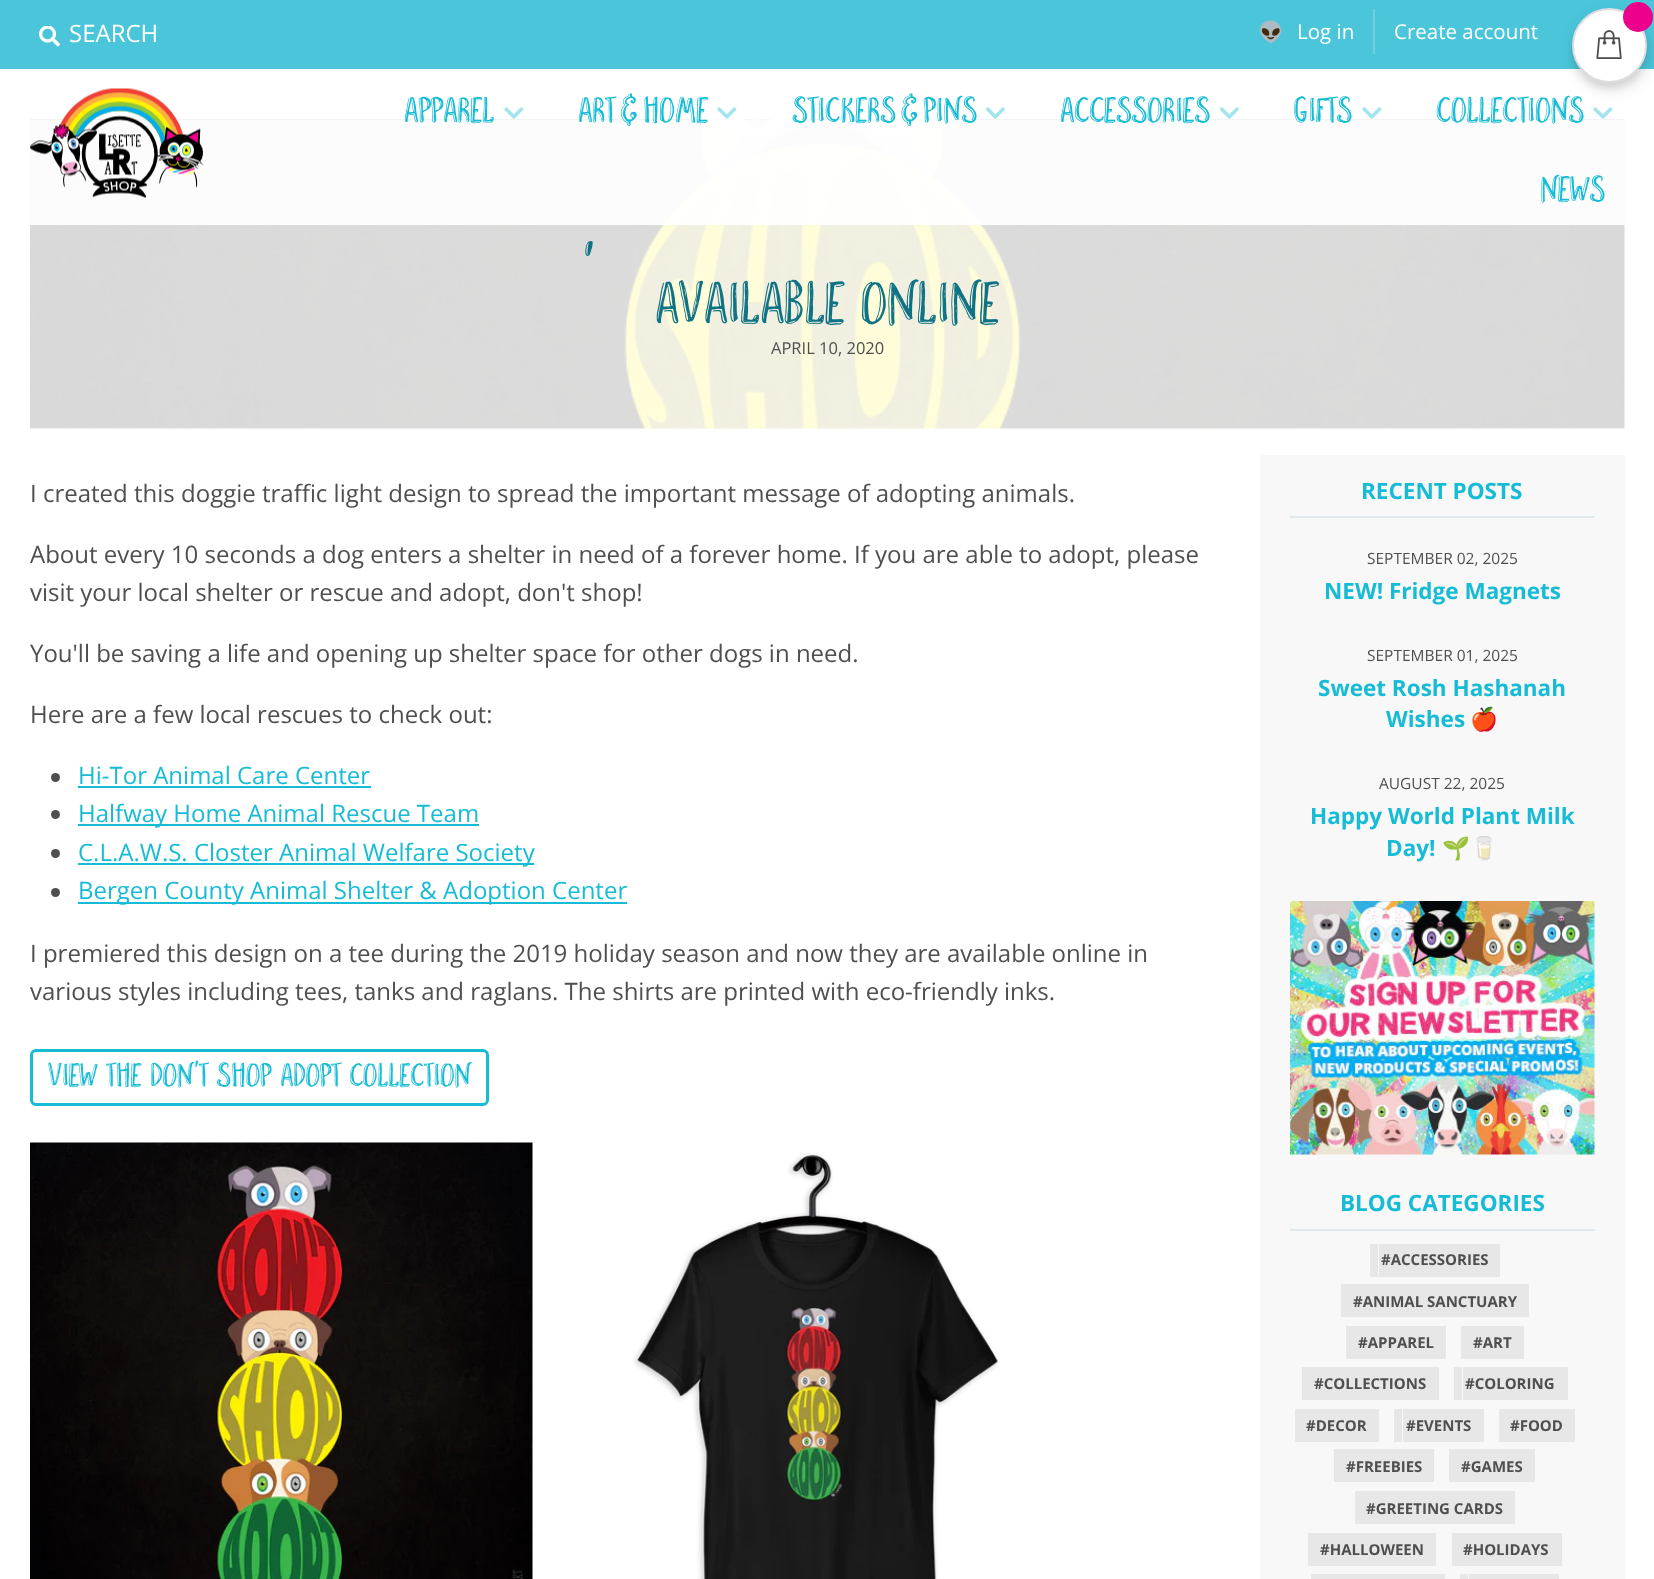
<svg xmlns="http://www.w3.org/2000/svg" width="1654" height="1579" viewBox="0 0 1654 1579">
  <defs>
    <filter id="blur1" x="-50%" y="-200%" width="200%" height="500%"><feGaussianBlur stdDeviation="3"/></filter>
    <filter id="blur2" x="-50%" y="-200%" width="200%" height="500%"><feGaussianBlur stdDeviation="7.5"/></filter>
  </defs>
  <rect width="100%" height="100%" fill="#ffffff"/>
  <rect x="0" y="0" width="1654" height="69" fill="#4ac5da"/>
  <rect x="1572" y="14" width="75" height="75" rx="37.5" fill="#000000" fill-opacity="0.08" filter="url(#blur1)"/>
  <image x="1593" y="107" width="20" height="12" href="img4.png"/>
  <rect x="1574" y="14" width="75" height="75" rx="37.5" fill="#000000" fill-opacity="0.12" filter="url(#blur2)"/>
  <circle cx="1609.5" cy="45.5" r="36.5" fill="#ffffff" stroke="#dddddd" stroke-width="2"/>
  <circle cx="1638" cy="17" r="15" fill="#ec008c"/>
  <image x="1596" y="30" width="26" height="29" href="img1.png"/>
  <image x="39" y="26" width="21" height="21" href="img2.png"/>
  <text x="69" y="42" font-family="Open Sans" font-size="24" fill="#ffffff">SEARCH</text>
  <text x="1258" y="39" font-family="Noto Color Emoji" font-size="20.5" fill="#ffffff">👽</text>
  <rect x="1373" y="9" width="2" height="45" fill="#6ed0e1"/>
  <text x="1297" y="39" font-family="Open Sans" font-size="20.5" fill="#ffffff">Log in</text>
  <text x="1394" y="39" font-family="Open Sans" font-size="20.5" fill="#ffffff">Create account</text>
  <image x="30" y="119" width="1595" height="310" href="img6.png"/>
  <rect x="30" y="119" width="1595" height="106" fill="#ffffff" fill-opacity="0.9"/>
  <image x="30" y="88" width="174" height="110" href="img3.png"/>
  <text x="404" y="122" font-family="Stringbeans" font-size="36" fill="#16bcd5">APPAREL</text>
  <image x="504" y="107" width="20" height="12" href="img4.png"/>
  <text x="578" y="122" font-family="Stringbeans" font-size="36" fill="#16bcd5">ART &amp; HOME</text>
  <image x="717" y="107" width="20" height="12" href="img4.png"/>
  <text x="792" y="122" font-family="Stringbeans" font-size="36" fill="#16bcd5">STICKERS &amp; PINS</text>
  <image x="985" y="107" width="20" height="12" href="img5.png"/>
  <text x="1060" y="122" font-family="Stringbeans" font-size="36" fill="#16bcd5">ACCESSORIES</text>
  <image x="1219" y="107" width="20" height="12" href="img5.png"/>
  <text x="1293" y="122" font-family="Stringbeans" font-size="36" fill="#16bcd5">GIFTS</text>
  <image x="1362" y="107" width="20" height="12" href="img4.png"/>
  <text x="1436" y="122" font-family="Stringbeans" font-size="36" fill="#16bcd5">COLLECTIONS</text>
  <text x="1540" y="201" font-family="Stringbeans" font-size="36" fill="#16bcd5">NEWS</text>
  <text x="583" y="251" font-family="Stringbeans" font-size="60" fill="#0f7285">,</text>
  <text x="655" y="323" font-family="Stringbeans" font-size="60" fill="#0f7285">Available Online</text>
  <text x="771" y="354" font-family="Open Sans" font-size="16.5" fill="#4f4f4f">APRIL 10, 2020</text>
  <text x="30" y="502" font-family="Open Sans" font-size="24" fill="#4f4f4f">I created this doggie traffic light design to spread the important message of adopting animals.</text>
  <text x="30" y="563" font-family="Open Sans" font-size="24" fill="#4f4f4f">About every 10 seconds a dog enters a shelter in need of a forever home. If you are able to adopt, please</text>
  <text x="30" y="601" font-family="Open Sans" font-size="24" fill="#4f4f4f">visit your local shelter or rescue and adopt, don't shop!</text>
  <text x="30" y="662" font-family="Open Sans" font-size="24" fill="#4f4f4f">You'll be saving a life and opening up shelter space for other dogs in need.</text>
  <text x="30" y="723" font-family="Open Sans" font-size="24" fill="#4f4f4f">Here are a few local rescues to check out:</text>
  <circle cx="55.5" cy="777.5" r="4.5" fill="#4f4f4f"/>
  <text x="78" y="784" font-family="Open Sans" font-size="24" fill="#16bcd5">Hi-Tor Animal Care Center</text>
  <rect x="78" y="786" width="293" height="2" fill="#16bcd5"/>
  <circle cx="55.5" cy="814.5" r="4.5" fill="#4f4f4f"/>
  <rect x="78" y="824" width="401" height="2" fill="#16bcd5"/>
  <text x="78" y="822" font-family="Open Sans" font-size="24" fill="#16bcd5">Halfway Home Animal Rescue Team</text>
  <circle cx="55.5" cy="853.5" r="4.5" fill="#4f4f4f"/>
  <rect x="78" y="863" width="456" height="2" fill="#16bcd5"/>
  <text x="78" y="861" font-family="Open Sans" font-size="24" fill="#16bcd5">C.L.A.W.S. Closter Animal Welfare Society</text>
  <circle cx="55.5" cy="892.5" r="4.5" fill="#4f4f4f"/>
  <rect x="78" y="902" width="549" height="2" fill="#16bcd5"/>
  <text x="78" y="899" font-family="Open Sans" font-size="24" fill="#16bcd5">Bergen County Animal Shelter &amp; Adoption Center</text>
  <text x="30" y="962" font-family="Open Sans" font-size="24" fill="#4f4f4f">I premiered this design on a tee during the 2019 holiday season and now they are available online in</text>
  <text x="30" y="1000" font-family="Open Sans" font-size="24" fill="#4f4f4f">various styles including tees, tanks and raglans. The shirts are printed with eco-friendly inks.</text>
  <rect x="31.5" y="1050.5" width="456" height="54" rx="4.5" fill="none" stroke="#16bcd5" stroke-width="3"/>
  <text x="48" y="1086" font-family="Stringbeans" font-size="33" fill="#16bcd5">VIEW THE DON'T SHOP ADOPT COLLECTION</text>
  <image x="30" y="1142" width="503" height="437" href="img7.png"/>
  <image x="633" y="1153" width="366" height="426" href="img8.png"/>
  <rect x="1260" y="455" width="365" height="1124" fill="#f8f8f8"/>
  <rect x="1290" y="516" width="305" height="2" fill="#e0eaec"/>
  <text x="1361" y="499" font-family="Open Sans" font-size="22.5" font-weight="bold" fill="#16bcd5">RECENT POSTS</text>
  <text x="1367" y="564" font-family="Open Sans" font-size="15.5" fill="#4f4f4f">SEPTEMBER 02, 2025</text>
  <text x="1324" y="599" font-family="Open Sans" font-size="22.5" font-weight="bold" fill="#16bcd5">NEW! Fridge Magnets</text>
  <text x="1367" y="661" font-family="Open Sans" font-size="15.5" fill="#4f4f4f">SEPTEMBER 01, 2025</text>
  <text x="1318" y="696" font-family="Open Sans" font-size="22.5" font-weight="bold" fill="#16bcd5">Sweet Rosh Hashanah</text>
  <text x="1386" y="727" font-family="Open Sans" font-size="22.5" font-weight="bold" fill="#16bcd5">Wishes</text>
  <text x="1470" y="727" font-family="Noto Color Emoji" font-size="22.5" font-weight="bold" fill="#16bcd5">🍎</text>
  <text x="1379" y="789" font-family="Open Sans" font-size="15.5" fill="#4f4f4f">AUGUST 22, 2025</text>
  <text x="1310" y="824" font-family="Open Sans" font-size="22.5" font-weight="bold" fill="#16bcd5">Happy World Plant Milk</text>
  <text x="1386" y="856" font-family="Open Sans" font-size="22.5" font-weight="bold" fill="#16bcd5">Day!</text>
  <text x="1442" y="856" font-family="Noto Color Emoji" font-size="22.5" font-weight="bold" fill="#16bcd5">🌱🥛</text>
  <image x="1290" y="901" width="305" height="254" href="img9.png"/>
  <rect x="1290" y="1229" width="305" height="2" fill="#e0eaec"/>
  <text x="1340" y="1211" font-family="Open Sans" font-size="22.5" font-weight="bold" fill="#16bcd5">BLOG CATEGORIES</text>
  <path d="M1370 1244V1277H1482V1276H1378V1244Z" fill="#e7e7e7"/>
  <path d="M1388 1276V1277H1500V1244H1491V1276Z" fill="#e7e7e7"/>
  <rect x="1379" y="1244" width="112" height="32" fill="#e7e7e7"/>
  <text x="1381" y="1265" font-family="Open Sans" font-size="15" font-weight="bold" fill="#4f4f4f">#ACCESSORIES</text>
  <rect x="1350" y="1284" width="179" height="33" fill="#e7e7e7"/>
  <text x="1353" y="1307" font-family="Open Sans" font-size="15" font-weight="bold" fill="#4f4f4f">#ANIMAL SANCTUARY</text>
  <rect x="1341" y="1284" width="9" height="33" fill="#e7e7e7"/>
  <rect x="1355" y="1326" width="91" height="33" fill="#e7e7e7"/>
  <text x="1358" y="1348" font-family="Open Sans" font-size="15" font-weight="bold" fill="#4f4f4f">#APPAREL</text>
  <rect x="1346" y="1326" width="9" height="33" fill="#e7e7e7"/>
  <rect x="1470" y="1326" width="54" height="33" fill="#e7e7e7"/>
  <text x="1473" y="1348" font-family="Open Sans" font-size="15" font-weight="bold" fill="#4f4f4f">#ART</text>
  <rect x="1461" y="1326" width="9" height="33" fill="#e7e7e7"/>
  <rect x="1311" y="1367" width="119" height="33" fill="#e7e7e7"/>
  <text x="1314" y="1389" font-family="Open Sans" font-size="15" font-weight="bold" fill="#4f4f4f">#COLLECTIONS</text>
  <path d="M1302 1367V1400H1421H1311V1367Z" fill="#e7e7e7"/>
  <path d="M1320 1400H1439V1367H1430V1400Z" fill="#e7e7e7"/>
  <rect x="1463" y="1367" width="95" height="33" fill="#e7e7e7"/>
  <text x="1465" y="1389" font-family="Open Sans" font-size="15" font-weight="bold" fill="#4f4f4f">#COLORING</text>
  <path d="M1454 1367V1400H1550H1462V1367Z" fill="#e7e7e7"/>
  <path d="M1472 1400H1568V1367H1558V1400Z" fill="#e7e7e7"/>
  <rect x="1304" y="1409" width="66" height="33" fill="#e7e7e7"/>
  <text x="1306" y="1431" font-family="Open Sans" font-size="15" font-weight="bold" fill="#4f4f4f">#DECOR</text>
  <path d="M1295 1409V1442H1361H1304V1409Z" fill="#e7e7e7"/>
  <path d="M1313 1442H1379V1409H1370V1442Z" fill="#e7e7e7"/>
  <rect x="1403" y="1409" width="71" height="33" fill="#e7e7e7"/>
  <text x="1406" y="1431" font-family="Open Sans" font-size="15" font-weight="bold" fill="#4f4f4f">#EVENTS</text>
  <path d="M1394 1409V1442H1466H1402V1409Z" fill="#e7e7e7"/>
  <path d="M1412 1442H1484V1409H1474V1442Z" fill="#e7e7e7"/>
  <rect x="1508" y="1409" width="58" height="33" fill="#e7e7e7"/>
  <text x="1510" y="1431" font-family="Open Sans" font-size="15" font-weight="bold" fill="#4f4f4f">#FOOD</text>
  <path d="M1499 1409V1442H1557H1508V1409Z" fill="#e7e7e7"/>
  <path d="M1517 1442H1575V1409H1566V1442Z" fill="#e7e7e7"/>
  <rect x="1343" y="1449" width="91" height="33" fill="#e7e7e7"/>
  <text x="1346" y="1472" font-family="Open Sans" font-size="15" font-weight="bold" fill="#4f4f4f">#FREEBIES</text>
  <rect x="1334" y="1449" width="9" height="33" fill="#e7e7e7"/>
  <rect x="1458" y="1449" width="77" height="33" fill="#e7e7e7"/>
  <text x="1461" y="1472" font-family="Open Sans" font-size="15" font-weight="bold" fill="#4f4f4f">#GAMES</text>
  <rect x="1449" y="1449" width="9" height="33" fill="#e7e7e7"/>
  <rect x="1364" y="1491" width="151" height="33" fill="#e7e7e7"/>
  <text x="1366" y="1514" font-family="Open Sans" font-size="15" font-weight="bold" fill="#4f4f4f">#GREETING CARDS</text>
  <rect x="1355" y="1491" width="9" height="33" fill="#e7e7e7"/>
  <rect x="1317" y="1533" width="119" height="33" fill="#e7e7e7"/>
  <text x="1320" y="1555" font-family="Open Sans" font-size="15" font-weight="bold" fill="#4f4f4f">#HALLOWEEN</text>
  <rect x="1308" y="1533" width="9" height="33" fill="#e7e7e7"/>
  <rect x="1461" y="1533" width="101" height="33" fill="#e7e7e7"/>
  <text x="1463" y="1555" font-family="Open Sans" font-size="15" font-weight="bold" fill="#4f4f4f">#HOLIDAYS</text>
  <rect x="1452" y="1533" width="9" height="33" fill="#e7e7e7"/>
  <path d="M1311 1574V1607H1427V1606H1320V1574Z" fill="#e7e7e7"/>
  <rect x="1320" y="1574" width="116" height="5" fill="#e7e7e7"/>
  <path d="M1329 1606V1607H1445V1574H1436V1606Z" fill="#e7e7e7"/>
  <path d="M1460 1574V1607H1541V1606H1468V1574Z" fill="#e7e7e7"/>
  <rect x="1469" y="1574" width="81" height="5" fill="#e7e7e7"/>
  <path d="M1478 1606V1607H1559V1574H1550V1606Z" fill="#e7e7e7"/>
</svg>
